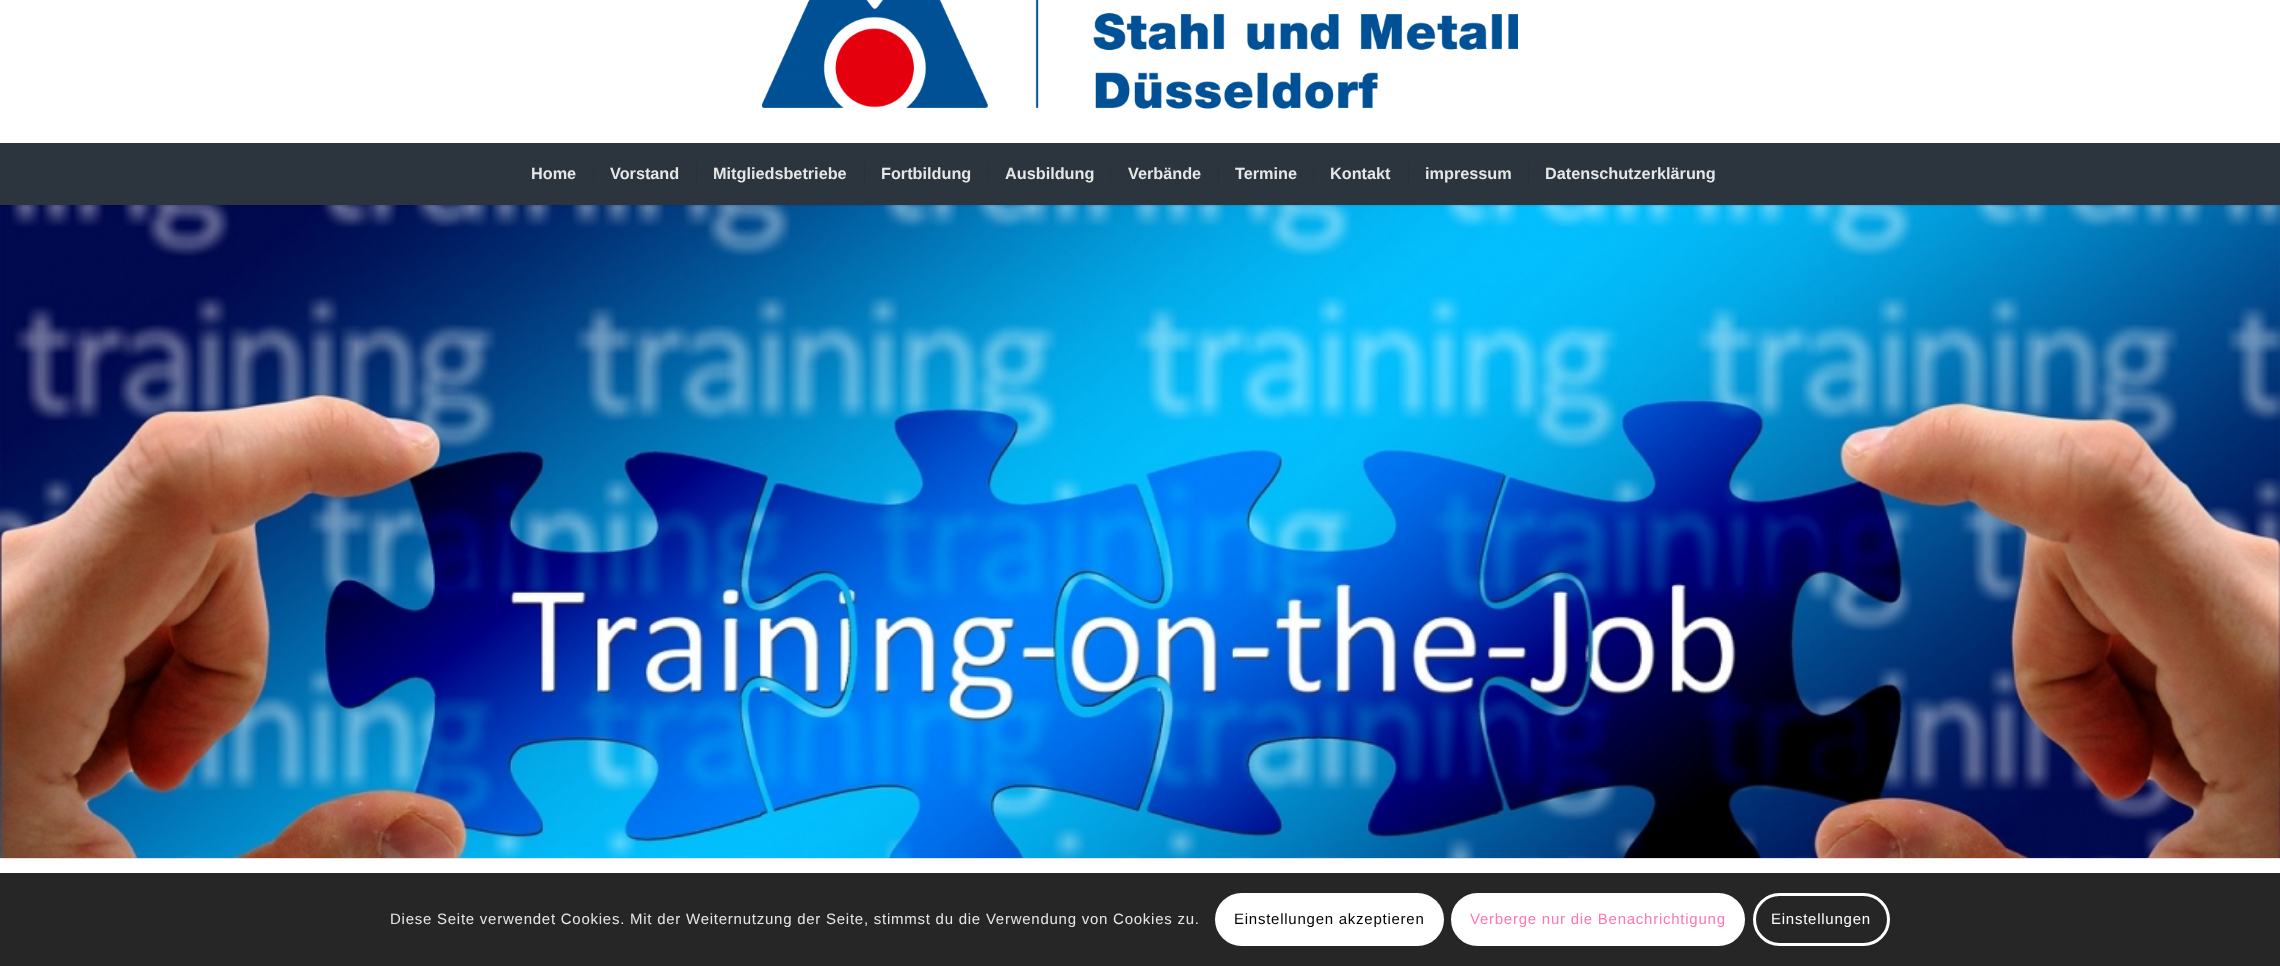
<svg xmlns="http://www.w3.org/2000/svg" width="2280" height="966" viewBox="0 0 2280 966">
  <defs>
    <clipPath id="clip1"><rect x="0" y="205" width="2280" height="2"/></clipPath>
    <filter id="blur1" x="-50%" y="-200%" width="200%" height="500%"><feGaussianBlur stdDeviation="1"/></filter>
  </defs>
  <rect width="100%" height="100%" fill="#ffffff"/>
  <image x="0" y="205" width="2280" height="653" href="img2.png"/>
  <g clip-path="url(#clip1)">
    <rect x="-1" y="-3" width="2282" height="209" fill="#000000" fill-opacity="0.1" filter="url(#blur1)"/>
  </g>
  <image x="762" y="0" width="756" height="109" href="img1.png"/>
  <rect x="0" y="143" width="2280" height="62" fill="#2c353d"/>
  <text x="531" y="179" font-family="Liberation Sans" font-size="16.25" font-weight="bold" fill="#e6e6e6">Home</text>
  <text x="610" y="179" font-family="Liberation Sans" font-size="16.25" font-weight="bold" fill="#e6e6e6">Vorstand</text>
  <rect x="593" y="164" width="1" height="19" fill="#2c3033"/>
  <text x="713" y="179" font-family="Liberation Sans" font-size="16.25" font-weight="bold" fill="#e6e6e6">Mitgliedsbetriebe</text>
  <rect x="696" y="164" width="1" height="19" fill="#2c3033"/>
  <text x="881" y="179" font-family="Liberation Sans" font-size="16.25" font-weight="bold" fill="#e6e6e6">Fortbildung</text>
  <rect x="864" y="164" width="1" height="19" fill="#2c3033"/>
  <text x="1005" y="179" font-family="Liberation Sans" font-size="16.25" font-weight="bold" fill="#e6e6e6">Ausbildung</text>
  <rect x="988" y="164" width="1" height="19" fill="#2c3033"/>
  <text x="1128" y="179" font-family="Liberation Sans" font-size="16.25" font-weight="bold" fill="#e6e6e6">Verbände</text>
  <rect x="1110" y="164" width="1" height="19" fill="#2c3033"/>
  <text x="1235" y="179" font-family="Liberation Sans" font-size="16.25" font-weight="bold" fill="#e6e6e6">Termine</text>
  <rect x="1218" y="164" width="1" height="19" fill="#2c3033"/>
  <text x="1330" y="179" font-family="Liberation Sans" font-size="16.25" font-weight="bold" fill="#e6e6e6">Kontakt</text>
  <rect x="1313" y="164" width="1" height="19" fill="#2c3033"/>
  <text x="1425" y="179" font-family="Liberation Sans" font-size="16.25" font-weight="bold" fill="#e6e6e6">impressum</text>
  <rect x="1408" y="164" width="1" height="19" fill="#2c3033"/>
  <text x="1545" y="179" font-family="Liberation Sans" font-size="16.25" font-weight="bold" fill="#e6e6e6">Datenschutzerklärung</text>
  <rect x="1528" y="164" width="1" height="19" fill="#2c3033"/>
  <rect x="0" y="858" width="2280" height="1" fill="#e1e1e1"/>
  <rect x="0" y="873" width="2280" height="93" fill="#262626"/>
  <text x="390" y="924" font-family="Liberation Sans" font-size="15" letter-spacing="0.75" fill="#e6e6e6">Diese Seite verwendet Cookies. Mit der Weiternutzung der Seite, stimmst du die Verwendung von Cookies zu.</text>
  <rect x="1215" y="893" width="229" height="53" rx="26.5" fill="#ffffff"/>
  <text x="1234" y="924" font-family="Liberation Sans" font-size="15" letter-spacing="0.75" fill="#000000">Einstellungen akzeptieren</text>
  <rect x="1452.5" y="894.5" width="291" height="50" rx="25" fill="#ffffff" stroke="#ffffff" stroke-width="3"/>
  <text x="1470" y="924" font-family="Liberation Sans" font-size="15" letter-spacing="0.75" fill="#ff75b5">Verberge nur die Benachrichtigung</text>
  <rect x="1754.5" y="894.5" width="134" height="50" rx="25" fill="none" stroke="#ffffff" stroke-width="3"/>
  <text x="1771" y="924" font-family="Liberation Sans" font-size="15" letter-spacing="0.75" fill="#ffffff">Einstellungen</text>
</svg>
